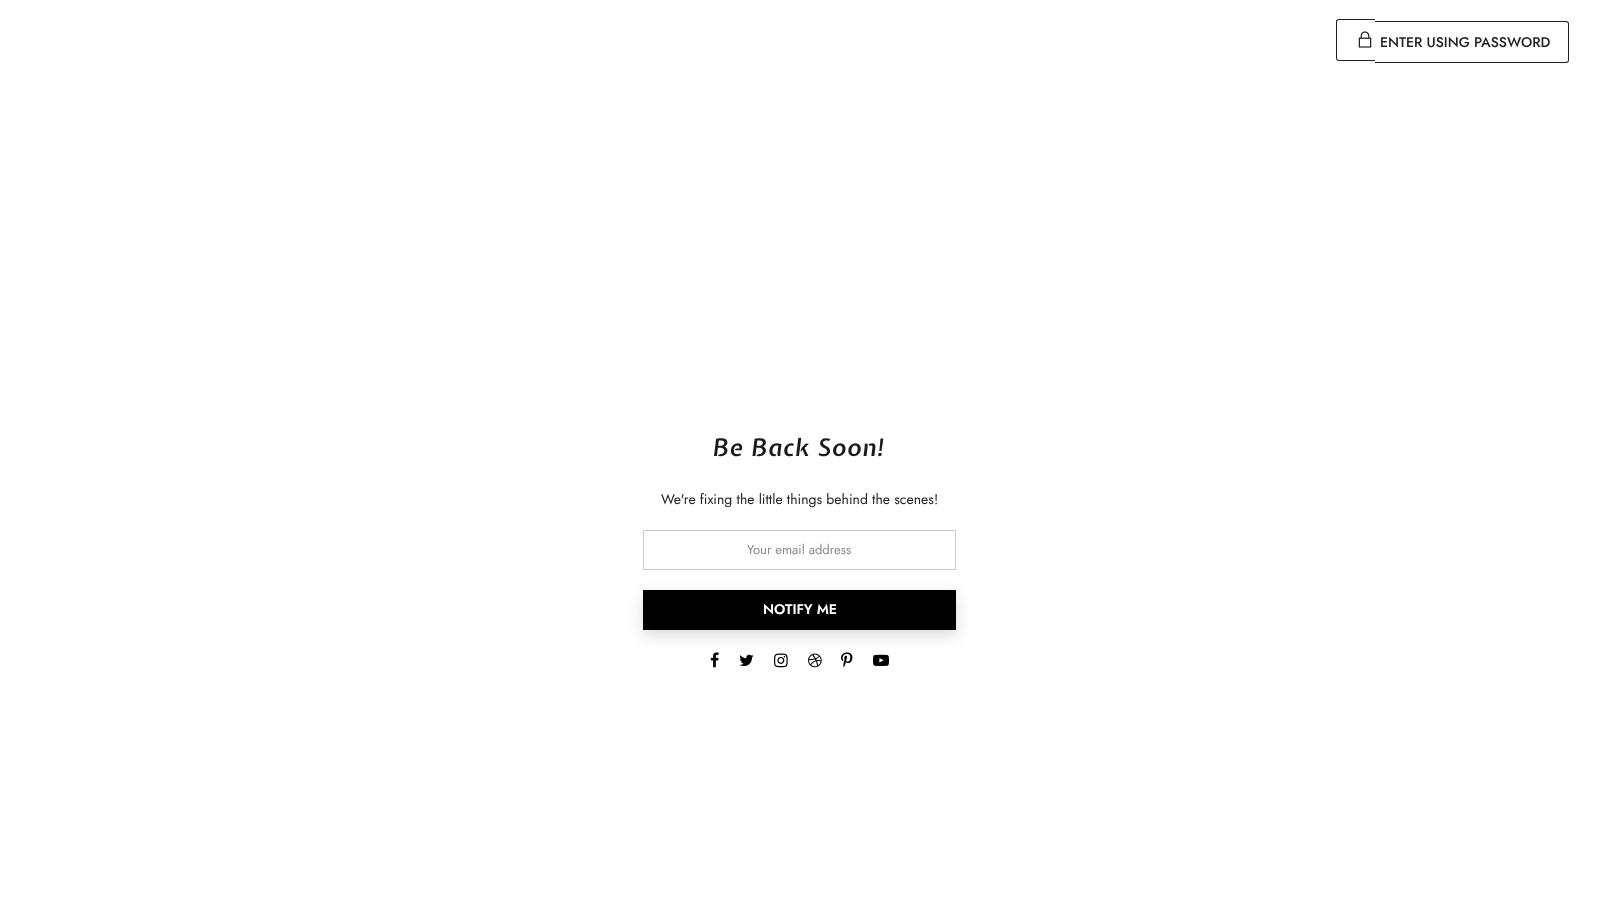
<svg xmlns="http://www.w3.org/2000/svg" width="1599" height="903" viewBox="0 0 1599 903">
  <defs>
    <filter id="blur1" x="-50%" y="-200%" width="200%" height="500%"><feGaussianBlur stdDeviation="7.5"/></filter>
  </defs>
  <rect width="100%" height="100%" fill="#ffffff"/>
  <path d="M1339 19H1375V61H1339C1337 61 1336 60 1336 58V22C1336 20 1337 19 1339 19ZM1339 20H1375V60H1339C1338 60 1337 59 1337 58V22C1337 21 1338 20 1339 20Z" fill="#222222" fill-rule="evenodd"/>
  <path d="M1375 21H1566C1568 21 1569 22 1569 24V60C1569 62 1568 63 1566 63H1375ZM1375 22H1566C1567 22 1568 23 1568 24V60C1568 61 1567 62 1566 62H1375Z" fill="#222222" fill-rule="evenodd"/>
  <image x="1358" y="31" width="14" height="17" href="img1.png"/>
  <text x="1380" y="47" font-family="Jost" font-size="14" font-weight="500" fill="#222222">ENTER USING PASSWORD</text>
  <text x="712" y="456" font-family="Expletus Sans" font-size="24" font-weight="600" font-style="italic" letter-spacing="1" fill="#1a1a1a">Be Back Soon!</text>
  <text x="661" y="504" font-family="Jost" font-size="14" fill="#222222">We're fixing the little things behind the scenes!</text>
  <rect x="643.5" y="530.5" width="312" height="39" fill="none" stroke="#cccccc"/>
  <text x="747" y="554" font-family="Jost" font-size="13" fill="#878787">Your email address</text>
  <rect x="643" y="595" width="313" height="40" fill="#000000" fill-opacity="0.15" filter="url(#blur1)"/>
  <rect x="643" y="590" width="313" height="40" fill="#000000"/>
  <text x="763" y="614" font-family="Jost" font-size="14" font-weight="600" fill="#ffffff">NOTIFY ME</text>
  <image x="710" y="652" width="9" height="16" href="img2.png"/>
  <image x="739" y="654" width="15" height="13" href="img3.png"/>
  <image x="774" y="653" width="14" height="15" href="img4.png"/>
  <image x="808" y="653" width="14" height="15" href="img5.png"/>
  <image x="841" y="652" width="12" height="16" href="img6.png"/>
  <image x="873" y="654" width="16" height="12" href="img7.png"/>
</svg>
